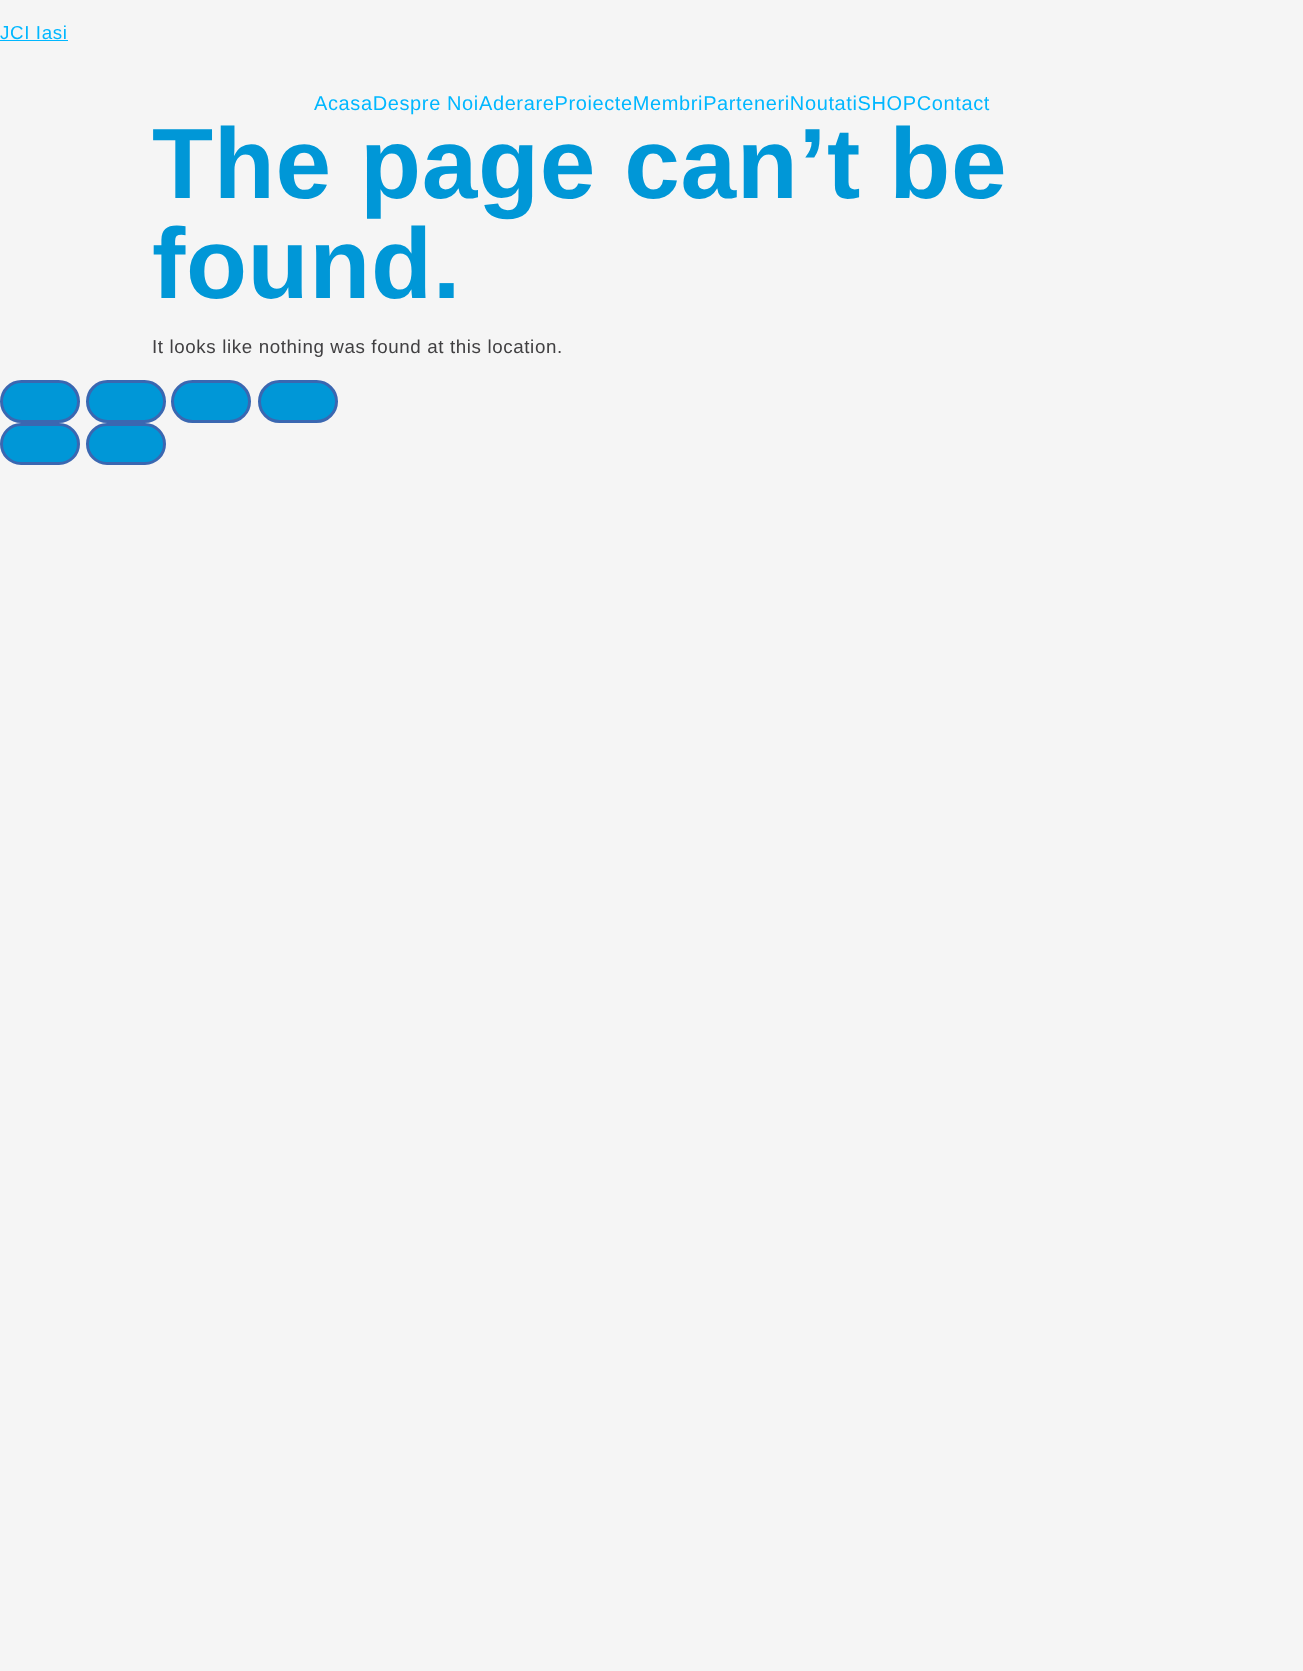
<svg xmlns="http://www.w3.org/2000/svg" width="1303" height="1671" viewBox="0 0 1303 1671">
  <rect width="100%" height="100%" fill="#f5f5f5"/>
  <text x="0" y="39" font-family="Liberation Sans" font-size="18.75" letter-spacing="0.62" fill="#00b7ff">JCI Iasi</text>
  <rect x="0" y="40" width="68" height="1" fill="#00b7ff"/>
  <text x="314" y="110" font-family="Liberation Sans" font-size="20" letter-spacing="0.62" fill="#00b7ff">AcasaDespre NoiAderareProiecteMembriParteneriNoutatiSHOPContact</text>
  <text x="152" y="198" font-family="Liberation Sans" font-size="100" font-weight="bold" letter-spacing="0.62" fill="#0097d7">The page can’t be</text>
  <text x="152" y="298" font-family="Liberation Sans" font-size="100" font-weight="bold" letter-spacing="0.62" fill="#0097d7">found.</text>
  <text x="152" y="353" font-family="Liberation Sans" font-size="18.75" letter-spacing="0.62" fill="#414042">It looks like nothing was found at this location.</text>
  <rect x="1.5" y="381.5" width="77" height="40" rx="20" fill="#0097d7" stroke="#3a67b1" stroke-width="3"/>
  <rect x="87.5" y="381.5" width="77" height="40" rx="20" fill="#0097d7" stroke="#3a67b1" stroke-width="3"/>
  <rect x="172.5" y="381.5" width="77" height="40" rx="20" fill="#0097d7" stroke="#3a67b1" stroke-width="3"/>
  <rect x="259.5" y="381.5" width="77" height="40" rx="20" fill="#0097d7" stroke="#3a67b1" stroke-width="3"/>
  <rect x="1.5" y="424.5" width="77" height="39" rx="19.5" fill="#0097d7" stroke="#3a67b1" stroke-width="3"/>
  <rect x="87.5" y="424.5" width="77" height="39" rx="19.5" fill="#0097d7" stroke="#3a67b1" stroke-width="3"/>
</svg>
